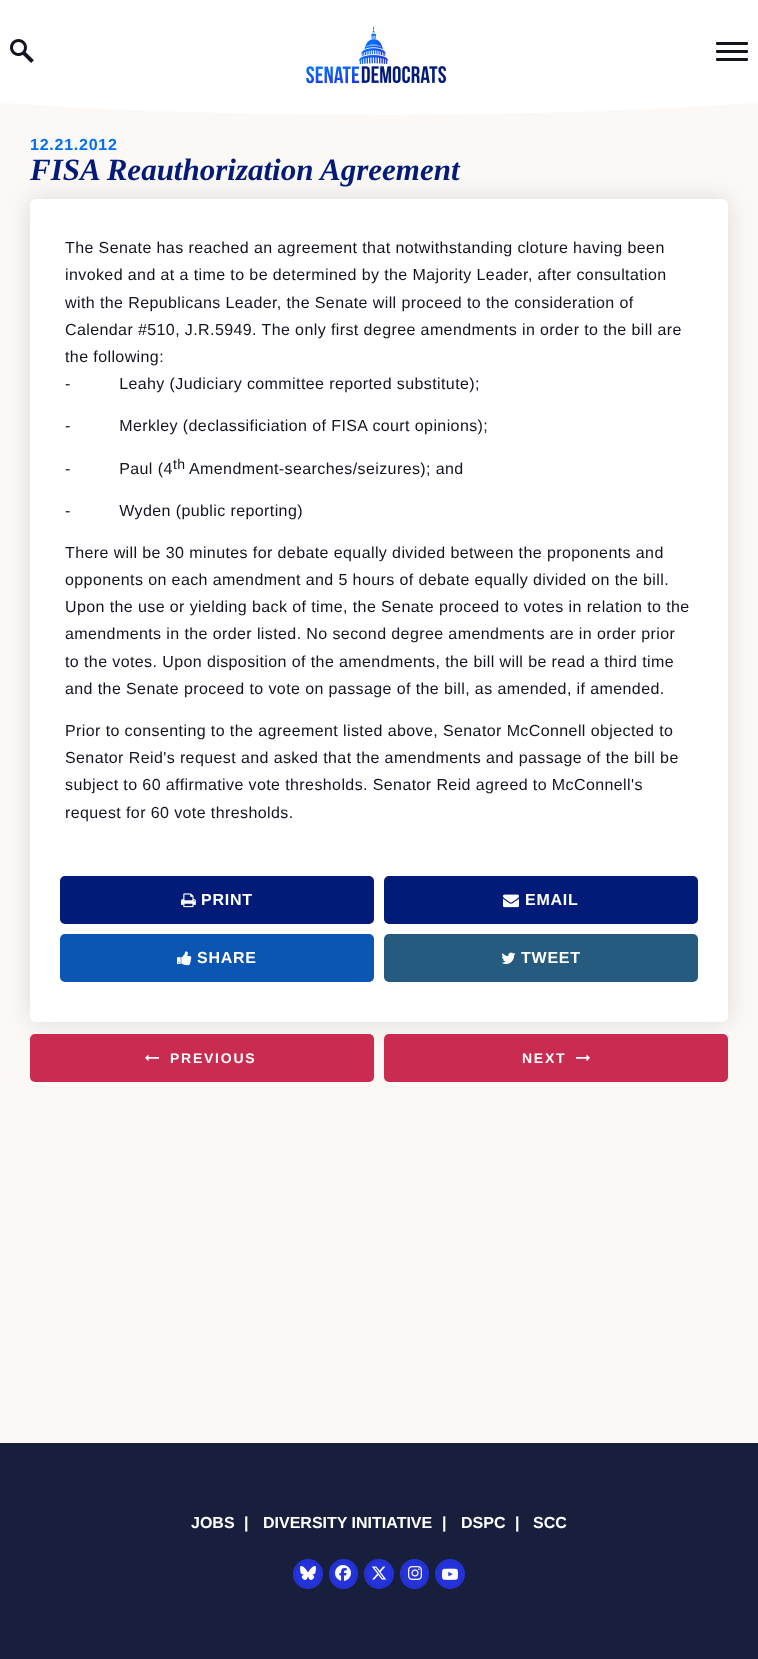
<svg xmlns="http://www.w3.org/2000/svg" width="758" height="1659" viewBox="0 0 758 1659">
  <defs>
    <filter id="blur1" x="-50%" y="-200%" width="200%" height="500%"><feGaussianBlur stdDeviation="12.5"/></filter>
  </defs>
  <rect width="100%" height="100%" fill="#fbf8f6"/>
  <rect x="0" y="0" width="758" height="99" fill="#ffffff"/>
  <image x="10" y="39" width="24" height="24" href="img1.png"/>
  <image x="306" y="26" width="140" height="58" href="img2.png"/>
  <rect x="716" y="42" width="32" height="3" rx="1" fill="#121420"/>
  <rect x="716" y="50" width="32" height="3" rx="1" fill="#121420"/>
  <rect x="716" y="58" width="32" height="3" rx="1" fill="#121420"/>
  <path d="M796 99C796 99 667 114 379 115C91 114-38 99-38 99" fill="#ffffff"/>
  <text x="30" y="150" font-family="Arimo" font-size="16" font-weight="bold" letter-spacing="0.75" fill="#0070f0">12.21.2012</text>
  <rect x="30" y="199" width="698" height="823" rx="6" fill="#000000" fill-opacity="0.12" filter="url(#blur1)"/>
  <text x="30" y="180" font-family="Tinos" font-size="31" font-weight="bold" font-style="italic" fill="#021b79">FISA Reauthorization Agreement</text>
  <rect x="30" y="199" width="698" height="823" rx="6" fill="#ffffff"/>
  <text x="65" y="253" font-family="Arimo" font-size="16" letter-spacing="0.4" fill="#121420">The Senate has reached an agreement that notwithstanding cloture having been</text>
  <text x="65" y="280" font-family="Arimo" font-size="16" letter-spacing="0.4" fill="#121420">invoked and at a time to be determined by the Majority Leader, after consultation</text>
  <text x="65" y="308" font-family="Arimo" font-size="16" letter-spacing="0.4" fill="#121420">with the Republicans Leader, the Senate will proceed to the consideration of</text>
  <text x="65" y="335" font-family="Arimo" font-size="16" letter-spacing="0.4" fill="#121420">Calendar #510, J.R.5949. The only first degree amendments in order to the bill are</text>
  <text x="65" y="362" font-family="Arimo" font-size="16" letter-spacing="0.4" fill="#121420">the following:</text>
  <text x="65" y="389" font-family="Arimo" font-size="16" letter-spacing="0.4" fill="#121420" xml:space="preserve">-          Leahy (Judiciary committee reported substitute);</text>
  <text x="65" y="431" font-family="Arimo" font-size="16" letter-spacing="0.4" fill="#121420" xml:space="preserve">-          Merkley (declassificiation of FISA court opinions);</text>
  <text x="65" y="474" font-family="Arimo" font-size="16" letter-spacing="0.4" fill="#121420" xml:space="preserve">-          Paul (4</text>
  <text x="173" y="469" font-family="Arimo" font-size="14" letter-spacing="0.4" fill="#121420">th</text>
  <text x="189" y="474" font-family="Arimo" font-size="16" letter-spacing="0.4" fill="#121420">Amendment-searches/seizures); and</text>
  <text x="65" y="516" font-family="Arimo" font-size="16" letter-spacing="0.4" fill="#121420" xml:space="preserve">-          Wyden (public reporting)</text>
  <text x="65" y="558" font-family="Arimo" font-size="16" letter-spacing="0.4" fill="#121420">There will be 30 minutes for debate equally divided between the proponents and</text>
  <text x="65" y="585" font-family="Arimo" font-size="16" letter-spacing="0.4" fill="#121420">opponents on each amendment and 5 hours of debate equally divided on the bill.</text>
  <text x="65" y="612" font-family="Arimo" font-size="16" letter-spacing="0.4" fill="#121420">Upon the use or yielding back of time, the Senate proceed to votes in relation to the</text>
  <text x="65" y="639" font-family="Arimo" font-size="16" letter-spacing="0.4" fill="#121420">amendments in the order listed. No second degree amendments are in order prior</text>
  <text x="65" y="667" font-family="Arimo" font-size="16" letter-spacing="0.4" fill="#121420">to the votes. Upon disposition of the amendments, the bill will be read a third time</text>
  <text x="65" y="694" font-family="Arimo" font-size="16" letter-spacing="0.4" fill="#121420">and the Senate proceed to vote on passage of the bill, as amended, if amended.</text>
  <text x="65" y="736" font-family="Arimo" font-size="16" letter-spacing="0.4" fill="#121420">Prior to consenting to the agreement listed above, Senator McConnell objected to</text>
  <text x="65" y="763" font-family="Arimo" font-size="16" letter-spacing="0.4" fill="#121420">Senator Reid's request and asked that the amendments and passage of the bill be</text>
  <text x="65" y="790" font-family="Arimo" font-size="16" letter-spacing="0.4" fill="#121420">subject to 60 affirmative vote thresholds. Senator Reid agreed to McConnell's</text>
  <text x="65" y="818" font-family="Arimo" font-size="16" letter-spacing="0.4" fill="#121420">request for 60 vote thresholds.</text>
  <rect x="60" y="876" width="314" height="48" rx="5" fill="#021b79"/>
  <image x="181" y="893" width="15" height="15" href="img3.png"/>
  <text x="201" y="905" font-family="Arimo" font-size="16" font-weight="bold" letter-spacing="0.75" fill="#ffffff">PRINT</text>
  <rect x="384" y="876" width="314" height="48" rx="5" fill="#021b79"/>
  <image x="503" y="894" width="16" height="14" href="img4.png"/>
  <text x="525" y="905" font-family="Arimo" font-size="16" font-weight="bold" letter-spacing="0.75" fill="#ffffff">EMAIL</text>
  <rect x="60" y="934" width="314" height="48" rx="5" fill="#0a56b2"/>
  <image x="177" y="951" width="15" height="15" href="img5.png"/>
  <text x="197" y="963" font-family="Arimo" font-size="16" font-weight="bold" letter-spacing="0.75" fill="#ffffff">SHARE</text>
  <rect x="384" y="934" width="314" height="48" rx="5" fill="#245b7f"/>
  <image x="501" y="952" width="15" height="12" href="img6.png"/>
  <text x="521" y="963" font-family="Arimo" font-size="16" font-weight="bold" letter-spacing="0.75" fill="#ffffff">TWEET</text>
  <rect x="30" y="1034" width="344" height="48" rx="5" fill="#ca2b50"/>
  <image x="145" y="1054" width="14" height="8" href="img7.png"/>
  <text x="170" y="1063" font-family="Arimo" font-size="14" font-weight="bold" letter-spacing="1.75" fill="#ffffff">PREVIOUS</text>
  <rect x="384" y="1034" width="344" height="48" rx="5" fill="#ca2b50"/>
  <text x="522" y="1063" font-family="Arimo" font-size="14" font-weight="bold" letter-spacing="1.75" fill="#ffffff">NEXT</text>
  <image x="576" y="1054" width="14" height="8" href="img8.png"/>
  <rect x="0" y="1443" width="758" height="216" fill="#171f3d"/>
  <text x="191" y="1528" font-family="Arimo" font-size="16" font-weight="bold" fill="#ffffff">JOBS</text>
  <text x="244" y="1528" font-family="Arimo" font-size="16" font-weight="bold" fill="#ffffff">|</text>
  <text x="263" y="1528" font-family="Arimo" font-size="16" font-weight="bold" fill="#ffffff">DIVERSITY INITIATIVE</text>
  <text x="442" y="1528" font-family="Arimo" font-size="16" font-weight="bold" fill="#ffffff">|</text>
  <text x="461" y="1528" font-family="Arimo" font-size="16" font-weight="bold" fill="#ffffff">DSPC</text>
  <text x="515" y="1528" font-family="Arimo" font-size="16" font-weight="bold" fill="#ffffff">|</text>
  <text x="533" y="1528" font-family="Arimo" font-size="16" font-weight="bold" fill="#ffffff">SCC</text>
  <circle cx="308" cy="1574" r="14" fill="none" stroke="#2433db" stroke-width="2"/>
  <circle cx="308" cy="1574" r="13" fill="#2433db"/>
  <image x="300" y="1566" width="16" height="14" href="img9.png"/>
  <rect x="330" y="1560" width="27" height="28" rx="13.5" fill="none" stroke="#2433db" stroke-width="2"/>
  <rect x="331" y="1561" width="25" height="26" rx="12.5" fill="#2433db"/>
  <image x="335" y="1565" width="16" height="16" href="img10.png"/>
  <circle cx="379" cy="1574" r="14" fill="none" stroke="#2433db" stroke-width="2"/>
  <circle cx="379" cy="1574" r="13" fill="#2433db"/>
  <image x="372" y="1566" width="15" height="14" href="img11.png"/>
  <rect x="401" y="1560" width="27" height="28" rx="13.5" fill="none" stroke="#2433db" stroke-width="2"/>
  <rect x="402" y="1561" width="25" height="26" rx="12.5" fill="#2433db"/>
  <image x="408" y="1566" width="14" height="14" href="img12.png"/>
  <circle cx="450" cy="1574" r="14" fill="none" stroke="#2433db" stroke-width="2"/>
  <circle cx="450" cy="1574" r="13" fill="#2433db"/>
  <image x="442" y="1568" width="16" height="12" href="img13.png"/>
</svg>
